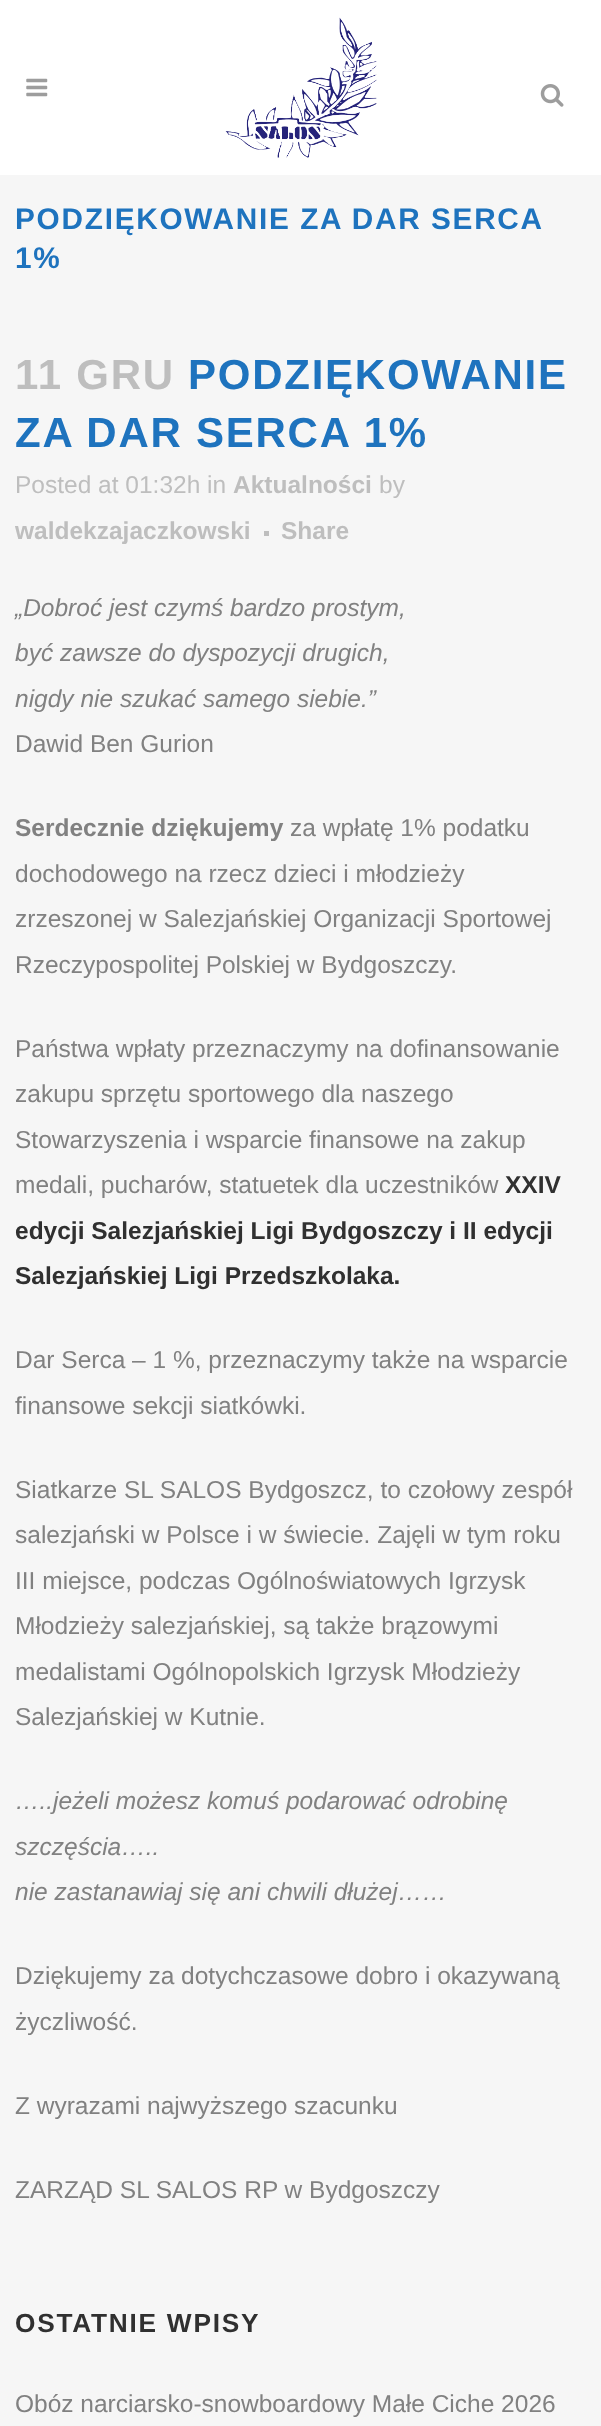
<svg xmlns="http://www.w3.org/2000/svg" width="601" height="2426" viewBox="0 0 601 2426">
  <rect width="100%" height="100%" fill="#f6f6f6"/>
  <rect x="0" y="0" width="601" height="175" fill="#ffffff"/>
  <image x="26" y="78" width="22" height="19" href="img1.png"/>
  <image x="225" y="17" width="152" height="141" href="img2.png"/>
  <image x="540" y="84" width="24" height="23" href="img3.png"/>
  <text x="15" y="229" word-spacing="-0.5" font-family="Liberation Sans" font-size="29.75" font-weight="bold" letter-spacing="1.75" fill="#1e73be">PODZIĘKOWANIE ZA DAR SERCA</text>
  <text x="15" y="268" font-family="Liberation Sans" font-size="29.75" font-weight="bold" letter-spacing="1.75" fill="#1e73be">1%</text>
  <text x="15" y="389" font-family="Liberation Sans" font-size="42" font-weight="bold" letter-spacing="1.75" fill="#bebebe">11 GRU</text>
  <text x="188" y="389" font-family="Liberation Sans" font-size="42" font-weight="bold" letter-spacing="1.75" fill="#1e73be">PODZIĘKOWANIE</text>
  <text x="15" y="447" font-family="Liberation Sans" font-size="42" font-weight="bold" letter-spacing="1.75" fill="#1e73be">ZA DAR SERCA 1%</text>
  <text x="15" y="493" font-family="Liberation Sans" font-size="24.5" fill="#bebebe">Posted at 01:32h in</text>
  <text x="233" y="493" font-family="Liberation Sans" font-size="24.5" font-weight="bold" fill="#bebebe">Aktualności</text>
  <text x="379" y="493" font-family="Liberation Sans" font-size="24.5" fill="#bebebe">by</text>
  <text x="15" y="539" font-family="Liberation Sans" font-size="24.5" font-weight="bold" fill="#bebebe">waldekzajaczkowski</text>
  <rect x="264" y="531" width="5" height="5" fill="#bebebe"/>
  <text x="281" y="539" font-family="Liberation Sans" font-size="24.5" font-weight="bold" fill="#bebebe">Share</text>
  <text x="15" y="616" font-family="Liberation Sans" font-size="24.5" font-style="italic" fill="#818181">„Dobroć jest czymś bardzo prostym,</text>
  <text x="15" y="661" font-family="Liberation Sans" font-size="24.5" font-style="italic" fill="#818181">być zawsze do dyspozycji drugich,</text>
  <text x="15" y="707" font-family="Liberation Sans" font-size="24.5" font-style="italic" fill="#818181">nigdy nie szukać samego siebie.”</text>
  <text x="15" y="752" font-family="Liberation Sans" font-size="24.5" fill="#818181">Dawid Ben Gurion</text>
  <text x="15" y="836" font-family="Liberation Sans" font-size="24.5" font-weight="bold" fill="#818181">Serdecznie dziękujemy</text>
  <text x="290" y="836" font-family="Liberation Sans" font-size="24.5" fill="#818181">za wpłatę 1% podatku</text>
  <text x="15" y="882" font-family="Liberation Sans" font-size="24.5" fill="#818181">dochodowego na rzecz dzieci i młodzieży</text>
  <text x="15" y="927" font-family="Liberation Sans" font-size="24.5" fill="#818181">zrzeszonej w Salezjańskiej Organizacji Sportowej</text>
  <text x="15" y="973" font-family="Liberation Sans" font-size="24.5" fill="#818181">Rzeczypospolitej Polskiej w Bydgoszczy.</text>
  <text x="15" y="1057" font-family="Liberation Sans" font-size="24.5" fill="#818181">Państwa wpłaty przeznaczymy na dofinansowanie</text>
  <text x="15" y="1102" font-family="Liberation Sans" font-size="24.5" fill="#818181">zakupu sprzętu sportowego dla naszego</text>
  <text x="15" y="1148" font-family="Liberation Sans" font-size="24.5" fill="#818181">Stowarzyszenia i wsparcie finansowe na zakup</text>
  <text x="15" y="1193" font-family="Liberation Sans" font-size="24.5" fill="#818181">medali, pucharów, statuetek dla uczestników</text>
  <text x="505" y="1193" font-family="Liberation Sans" font-size="24.5" font-weight="bold" fill="#303030">XXIV</text>
  <text x="15" y="1239" font-family="Liberation Sans" font-size="24.5" font-weight="bold" fill="#303030">edycji Salezjańskiej Ligi Bydgoszczy i II edycji</text>
  <text x="15" y="1284" font-family="Liberation Sans" font-size="24.5" font-weight="bold" fill="#303030">Salezjańskiej Ligi Przedszkolaka.</text>
  <text x="15" y="1368" font-family="Liberation Sans" font-size="24.5" fill="#818181">Dar Serca – 1 %, przeznaczymy także na wsparcie</text>
  <text x="15" y="1414" font-family="Liberation Sans" font-size="24.5" fill="#818181">finansowe sekcji siatkówki.</text>
  <text x="15" y="1498" font-family="Liberation Sans" font-size="24.5" fill="#818181">Siatkarze SL SALOS Bydgoszcz, to czołowy zespół</text>
  <text x="15" y="1543" font-family="Liberation Sans" font-size="24.5" fill="#818181">salezjański w Polsce i w świecie. Zajęli w tym roku</text>
  <text x="15" y="1589" font-family="Liberation Sans" font-size="24.5" fill="#818181">III miejsce, podczas Ogólnoświatowych Igrzysk</text>
  <text x="15" y="1634" font-family="Liberation Sans" font-size="24.5" fill="#818181">Młodzieży salezjańskiej, są także brązowymi</text>
  <text x="15" y="1680" font-family="Liberation Sans" font-size="24.5" fill="#818181">medalistami Ogólnopolskich Igrzysk Młodzieży</text>
  <text x="15" y="1725" font-family="Liberation Sans" font-size="24.5" fill="#818181">Salezjańskiej w Kutnie.</text>
  <text x="15" y="1809" font-family="Liberation Sans" font-size="24.5" font-style="italic" fill="#818181">…..jeżeli możesz komuś podarować odrobinę</text>
  <text x="15" y="1855" font-family="Liberation Sans" font-size="24.5" font-style="italic" fill="#818181">szczęścia…..</text>
  <text x="15" y="1900" font-family="Liberation Sans" font-size="24.5" font-style="italic" fill="#818181">nie zastanawiaj się ani chwili dłużej……</text>
  <text x="15" y="1984" font-family="Liberation Sans" font-size="24.5" fill="#818181">Dziękujemy za dotychczasowe dobro i okazywaną</text>
  <text x="15" y="2030" font-family="Liberation Sans" font-size="24.5" fill="#818181">życzliwość.</text>
  <text x="15" y="2114" font-family="Liberation Sans" font-size="24.5" fill="#818181">Z wyrazami najwyższego szacunku</text>
  <text x="15" y="2198" font-family="Liberation Sans" font-size="24.5" fill="#818181">ZARZĄD SL SALOS RP w Bydgoszczy</text>
  <text x="15" y="2332" font-family="Liberation Sans" font-size="26.25" font-weight="bold" letter-spacing="1.75" fill="#303030">OSTATNIE WPISY</text>
  <text x="15" y="2412" font-family="Liberation Sans" font-size="24.5" fill="#818181">Obóz narciarsko-snowboardowy Małe Ciche 2026</text>
</svg>
